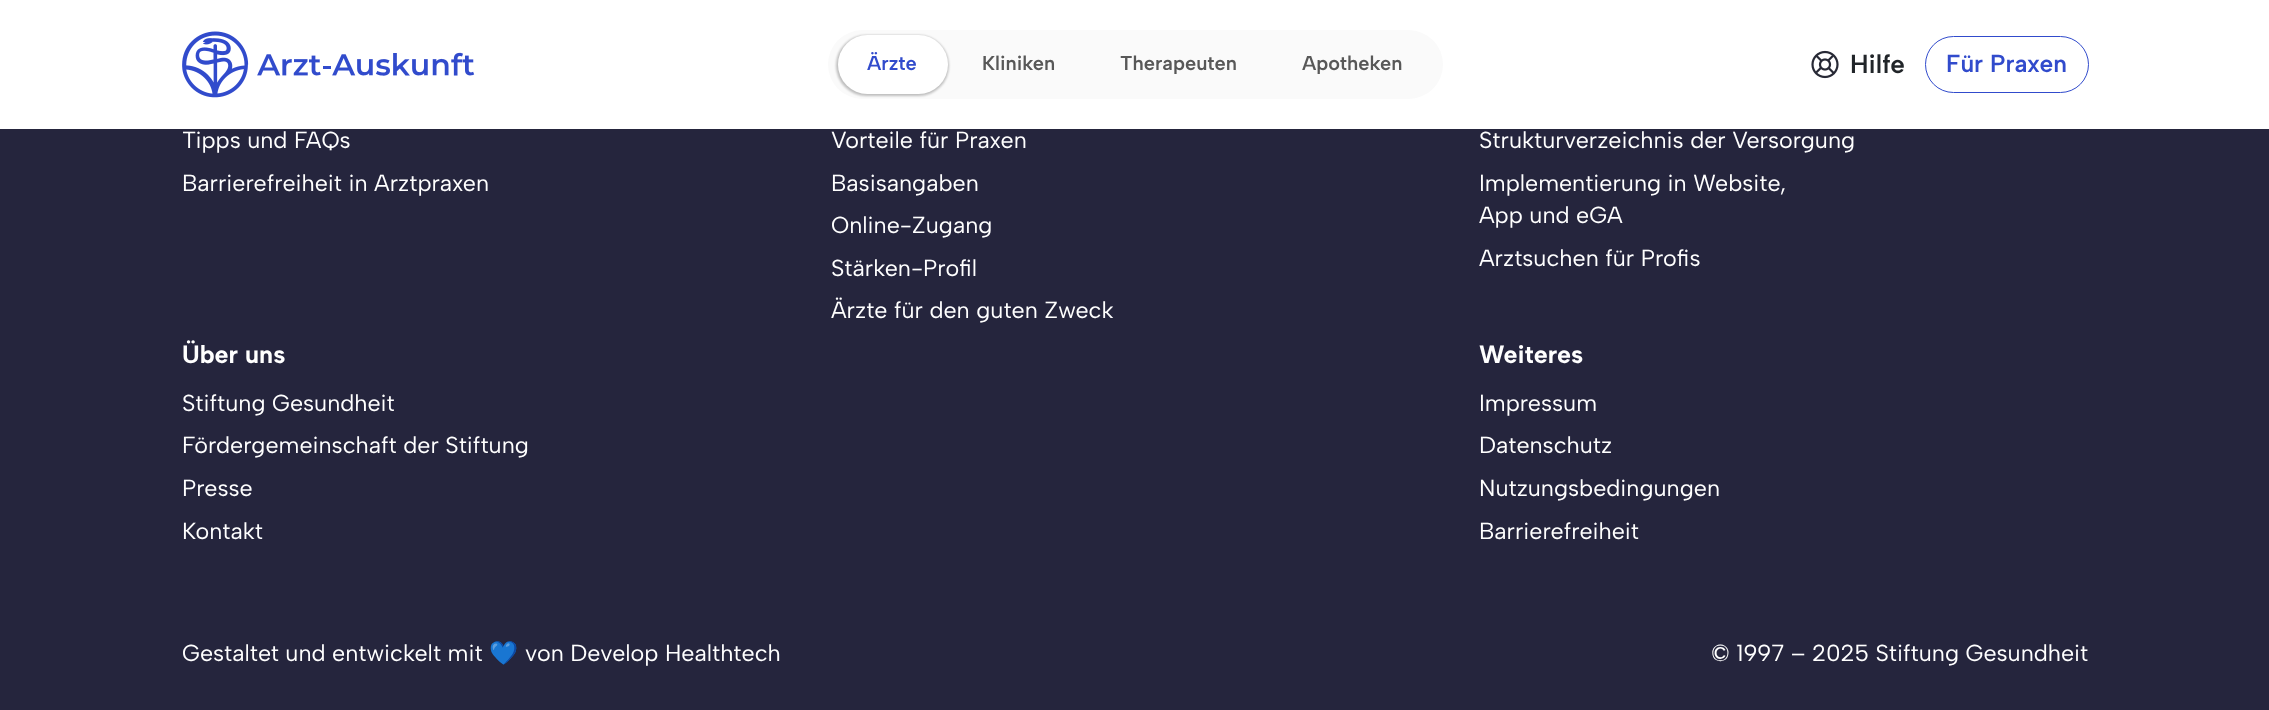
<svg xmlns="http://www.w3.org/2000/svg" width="2269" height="710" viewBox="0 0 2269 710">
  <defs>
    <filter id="blur1" x="-50%" y="-200%" width="200%" height="500%"><feGaussianBlur stdDeviation="1"/></filter>
  </defs>
  <rect width="100%" height="100%" fill="#25253d"/>
  <rect x="0" y="0" width="2269" height="129" fill="#ffffff"/>
  <image x="182" y="31" width="293" height="67" href="img1.png"/>
  <rect x="828" y="30" width="615" height="69" rx="34.5" fill="#fafafa"/>
  <rect x="836" y="35" width="113" height="61" rx="30.5" fill="#000000" fill-opacity="0.24" filter="url(#blur1)"/>
  <rect x="838" y="35" width="110" height="59" rx="29.5" fill="#ffffff"/>
  <text x="867" y="70" font-family="Albert Sans" font-size="20" font-weight="600" fill="#314bcc">Ärzte</text>
  <text x="982" y="70" font-family="Albert Sans" font-size="20" font-weight="600" fill="#585858">Kliniken</text>
  <text x="1120" y="70" font-family="Albert Sans" font-size="20" font-weight="600" fill="#585858">Therapeuten</text>
  <text x="1302" y="70" font-family="Albert Sans" font-size="20" font-weight="600" fill="#585858">Apotheken</text>
  <image x="1811" y="50" width="28" height="29" href="img2.png"/>
  <text x="1850" y="73" font-family="Albert Sans" font-size="26" font-weight="600" fill="#212529">Hilfe</text>
  <rect x="1925.5" y="36.5" width="163" height="56" rx="28" fill="none" stroke="#314bcc"/>
  <text x="1946" y="72" font-family="Albert Sans" font-size="24.5" font-weight="600" fill="#314bcc">Für Praxen</text>
  <text x="182" y="148" font-family="Albert Sans" font-size="23.25" fill="#ffffff">Tipps und FAQs</text>
  <text x="182" y="191" font-family="Albert Sans" font-size="23.25" fill="#ffffff">Barrierefreiheit in Arztpraxen</text>
  <text x="831" y="148" font-family="Albert Sans" font-size="23.25" fill="#ffffff">Vorteile für Praxen</text>
  <text x="831" y="191" font-family="Albert Sans" font-size="23.25" fill="#ffffff">Basisangaben</text>
  <text x="831" y="233" font-family="Albert Sans" font-size="23.25" fill="#ffffff">Online-Zugang</text>
  <text x="831" y="276" font-family="Albert Sans" font-size="23.25" fill="#ffffff">Stärken-Profil</text>
  <text x="831" y="318" font-family="Albert Sans" font-size="23.25" fill="#ffffff">Ärzte für den guten Zweck</text>
  <text x="1479" y="148" font-family="Albert Sans" font-size="23.25" fill="#ffffff">Strukturverzeichnis der Versorgung</text>
  <text x="1479" y="191" font-family="Albert Sans" font-size="23.25" fill="#ffffff">Implementierung in Website,</text>
  <text x="1479" y="223" font-family="Albert Sans" font-size="23.25" fill="#ffffff">App und eGA</text>
  <text x="1479" y="266" font-family="Albert Sans" font-size="23.25" fill="#ffffff">Arztsuchen für Profis</text>
  <text x="182" y="363" font-family="Albert Sans" font-size="25" font-weight="bold" fill="#ffffff">Über uns</text>
  <text x="182" y="411" font-family="Albert Sans" font-size="23.25" fill="#ffffff">Stiftung Gesundheit</text>
  <text x="182" y="453" font-family="Albert Sans" font-size="23.25" fill="#ffffff">Fördergemeinschaft der Stiftung</text>
  <text x="182" y="496" font-family="Albert Sans" font-size="23.25" fill="#ffffff">Presse</text>
  <text x="182" y="539" font-family="Albert Sans" font-size="23.25" fill="#ffffff">Kontakt</text>
  <text x="1479" y="363" font-family="Albert Sans" font-size="25" font-weight="bold" fill="#ffffff">Weiteres</text>
  <text x="1479" y="411" font-family="Albert Sans" font-size="23.25" fill="#ffffff">Impressum</text>
  <text x="1479" y="453" font-family="Albert Sans" font-size="23.25" fill="#ffffff">Datenschutz</text>
  <text x="1479" y="496" font-family="Albert Sans" font-size="23.25" fill="#ffffff">Nutzungsbedingungen</text>
  <text x="1479" y="539" font-family="Albert Sans" font-size="23.25" fill="#ffffff">Barrierefreiheit</text>
  <text x="182" y="661" font-family="Albert Sans" font-size="23.25" fill="#ffffff">Gestaltet und entwickelt mit</text>
  <text x="489" y="661" font-family="Noto Color Emoji" font-size="23.25" fill="#ffffff">💙</text>
  <text x="525" y="661" font-family="Albert Sans" font-size="23.25" fill="#ffffff">von Develop Healthtech</text>
  <text x="1711" y="661" font-family="Albert Sans" font-size="23.25" fill="#ffffff">© 1997 – 2025 Stiftung Gesundheit</text>
</svg>
